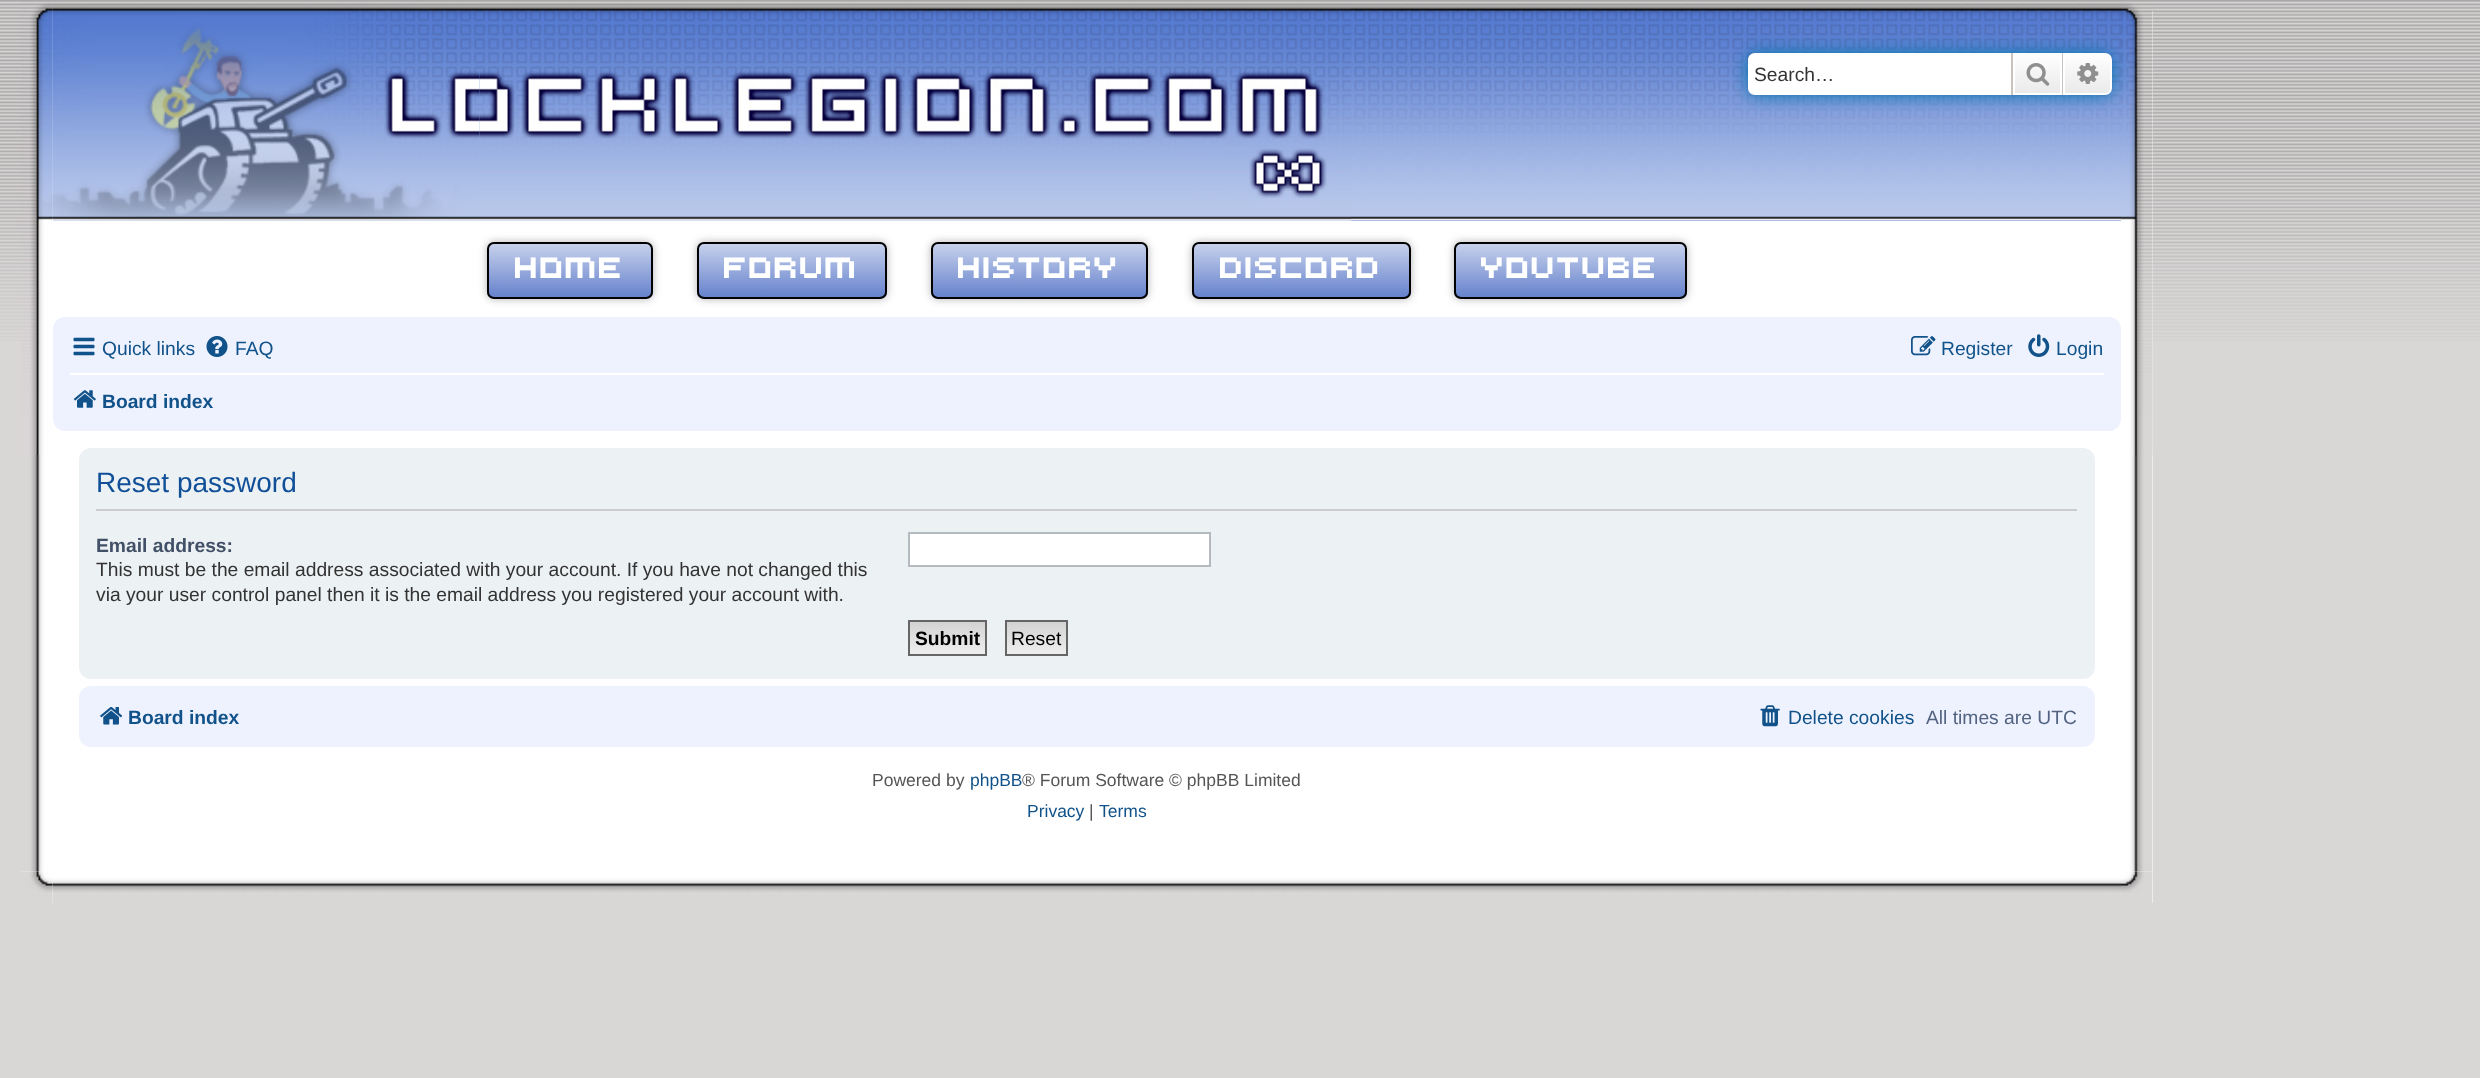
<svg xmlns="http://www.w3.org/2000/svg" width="2480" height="1078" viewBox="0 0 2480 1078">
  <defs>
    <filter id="blur1" x="-50%" y="-200%" width="200%" height="500%"><feGaussianBlur stdDeviation="9"/></filter>
    <linearGradient id="g1" gradientUnits="userSpaceOnUse" x1="2037" y1="53" x2="2037" y2="95"><stop offset="0" stop-color="#ffffff"/><stop offset="1" stop-color="#e9e9e9"/></linearGradient>
    <linearGradient id="g2" gradientUnits="userSpaceOnUse" x1="2088" y1="53" x2="2088" y2="95"><stop offset="0" stop-color="#ffffff"/><stop offset="1" stop-color="#e9e9e9"/></linearGradient>
    <filter id="blur2" x="-50%" y="-200%" width="200%" height="500%"><feGaussianBlur stdDeviation="4.5"/></filter>
    <clipPath id="clip1"><rect x="487" y="242" width="166" height="57" rx="7"/></clipPath>
    <linearGradient id="g3" gradientUnits="userSpaceOnUse" x1="570" y1="243" x2="570" y2="298"><stop offset="0" stop-color="#c8d2ec"/><stop offset="1" stop-color="#6481cc"/></linearGradient>
    <clipPath id="clip2"><rect x="697" y="242" width="190" height="57" rx="7"/></clipPath>
    <linearGradient id="g4" gradientUnits="userSpaceOnUse" x1="792" y1="243" x2="792" y2="298"><stop offset="0" stop-color="#c8d2ec"/><stop offset="1" stop-color="#6481cc"/></linearGradient>
    <clipPath id="clip3"><rect x="931" y="242" width="217" height="57" rx="7"/></clipPath>
    <linearGradient id="g5" gradientUnits="userSpaceOnUse" x1="1040" y1="243" x2="1040" y2="298"><stop offset="0" stop-color="#c8d2ec"/><stop offset="1" stop-color="#6481cc"/></linearGradient>
    <clipPath id="clip4"><rect x="1192" y="242" width="219" height="57" rx="7"/></clipPath>
    <linearGradient id="g6" gradientUnits="userSpaceOnUse" x1="1301" y1="243" x2="1301" y2="298"><stop offset="0" stop-color="#c8d2ec"/><stop offset="1" stop-color="#6481cc"/></linearGradient>
    <clipPath id="clip5"><rect x="1454" y="242" width="233" height="57" rx="7"/></clipPath>
    <linearGradient id="g7" gradientUnits="userSpaceOnUse" x1="1571" y1="243" x2="1571" y2="298"><stop offset="0" stop-color="#c8d2ec"/><stop offset="1" stop-color="#6481cc"/></linearGradient>
    <linearGradient id="g8" gradientUnits="userSpaceOnUse" x1="948" y1="621" x2="948" y2="655"><stop offset="0" stop-color="#d2d2d2"/><stop offset="1" stop-color="#efefef"/></linearGradient>
    <linearGradient id="g9" gradientUnits="userSpaceOnUse" x1="1036" y1="621" x2="1036" y2="655"><stop offset="0" stop-color="#d2d2d2"/><stop offset="1" stop-color="#efefef"/></linearGradient>
  </defs>
  <rect width="100%" height="100%" fill="#d9d6d6"/>
  <image x="0" y="0" width="2480" height="341" href="img1.png"/>
  <rect x="21" y="11" width="2132" height="892" fill="#ffffff"/>
  <image x="21" y="10" width="2132" height="893" href="img2.png"/>
  <image x="21" y="1" width="32" height="454" href="img3.png"/>
  <rect x="53" y="220" width="2068" height="1" fill="#5d7cc8"/>
  <image x="52" y="0" width="2069" height="221" href="img4.png"/>
  <image x="52" y="1" width="428" height="220" href="img5.png"/>
  <image x="479" y="2" width="872" height="219" href="img6.png"/>
  <image x="2121" y="2" width="32" height="453" href="img14.png"/>
  <rect x="1748" y="53" width="364" height="42" rx="7" fill="#0075b0" filter="url(#blur1)"/>
  <path d="M1755 53H2011V95H1755C1751 95 1748 92 1748 88V60C1748 56 1751 53 1755 53Z" fill="#ffffff"/>
  <text x="1754" y="81" font-family="Liberation Sans" font-size="19.25" fill="#333333">Search…</text>
  <rect x="2015" y="55" width="45" height="38" fill="url(#g1)"/>
  <rect x="2014" y="54" width="47" height="40" fill="none" stroke="#ffffff" stroke-width="2"/>
  <rect x="2062" y="53" width="1" height="42" fill="#c7c3bf"/>
  <rect x="2011" y="53" width="2" height="42" fill="#c7c3bf"/>
  <image x="2026" y="63" width="24" height="23" href="img7.png"/>
  <path d="M2064 54H2105C2108.5 54 2111 56.5 2111 60V88C2111 91.5 2108.5 94 2105 94H2064Z" fill="url(#g2)" stroke="#ffffff" stroke-width="2"/>
  <image x="2077" y="63" width="22" height="21" href="img8.png"/>
  <rect x="487" y="242" width="166" height="57" rx="7" fill="#000000" fill-opacity="0.3" filter="url(#blur2)"/>
  <g clip-path="url(#clip1)">
    <rect x="487" y="243" width="166" height="55" fill="url(#g3)"/>
  </g>
  <rect x="488" y="243" width="164" height="55" rx="6" fill="none" stroke="#000000" stroke-width="2"/>
  <text x="515" y="278" font-family="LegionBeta" font-size="31.5" font-weight="bold" letter-spacing="1.75" fill="#ffffff">HOME</text>
  <rect x="697" y="242" width="190" height="57" rx="7" fill="#000000" fill-opacity="0.3" filter="url(#blur2)"/>
  <g clip-path="url(#clip2)">
    <rect x="697" y="243" width="190" height="55" fill="url(#g4)"/>
  </g>
  <rect x="698" y="243" width="188" height="55" rx="6" fill="none" stroke="#000000" stroke-width="2"/>
  <text x="724" y="278" font-family="LegionBeta" font-size="31.5" font-weight="bold" letter-spacing="1.75" fill="#ffffff">FORUM</text>
  <rect x="931" y="242" width="217" height="57" rx="7" fill="#000000" fill-opacity="0.3" filter="url(#blur2)"/>
  <g clip-path="url(#clip3)">
    <rect x="931" y="243" width="217" height="55" fill="url(#g5)"/>
  </g>
  <rect x="932" y="243" width="215" height="55" rx="6" fill="none" stroke="#000000" stroke-width="2"/>
  <text x="958" y="278" font-family="LegionBeta" font-size="31.5" font-weight="bold" letter-spacing="1.75" fill="#ffffff">HISTORY</text>
  <rect x="1192" y="242" width="219" height="57" rx="7" fill="#000000" fill-opacity="0.3" filter="url(#blur2)"/>
  <g clip-path="url(#clip4)">
    <rect x="1192" y="243" width="219" height="55" fill="url(#g6)"/>
  </g>
  <rect x="1193" y="243" width="217" height="55" rx="6" fill="none" stroke="#000000" stroke-width="2"/>
  <text x="1220" y="278" font-family="LegionBeta" font-size="31.5" font-weight="bold" letter-spacing="1.75" fill="#ffffff">DISCORD</text>
  <rect x="1454" y="242" width="233" height="57" rx="7" fill="#000000" fill-opacity="0.3" filter="url(#blur2)"/>
  <g clip-path="url(#clip5)">
    <rect x="1454" y="243" width="233" height="55" fill="url(#g7)"/>
  </g>
  <rect x="1455" y="243" width="231" height="55" rx="6" fill="none" stroke="#000000" stroke-width="2"/>
  <text x="1481" y="278" font-family="LegionBeta" font-size="31.5" font-weight="bold" letter-spacing="1.75" fill="#ffffff">YOUTUBE</text>
  <rect x="53" y="317" width="2068" height="114" rx="12" fill="#eef2fe"/>
  <image x="73" y="337" width="22" height="19" href="img9.png"/>
  <text x="102" y="355" font-family="Liberation Sans" font-size="19.25" fill="#105289">Quick links</text>
  <image x="206" y="336" width="22" height="21" href="img10.png"/>
  <text x="235" y="355" font-family="Liberation Sans" font-size="19.25" fill="#105289">FAQ</text>
  <image x="1911" y="336" width="25" height="20" href="img11.png"/>
  <text x="1941" y="355" font-family="Liberation Sans" font-size="19.25" fill="#105289">Register</text>
  <image x="2028" y="334" width="22" height="23" href="img12.png"/>
  <text x="2056" y="355" font-family="Liberation Sans" font-size="19.25" fill="#105289">Login</text>
  <rect x="70" y="373" width="2034" height="2" fill="#ffffff"/>
  <image x="73" y="390" width="23" height="18" href="img13.png"/>
  <text x="102" y="408" font-family="Liberation Sans" font-size="19.25" font-weight="bold" fill="#105289">Board index</text>
  <rect x="79" y="448" width="2016" height="231" rx="12" fill="#ecf1f3"/>
  <rect x="96" y="509" width="1981" height="2" fill="#cccccc"/>
  <text x="96" y="492" font-family="Liberation Sans" font-size="28" fill="#115098">Reset password</text>
  <text x="96" y="552" font-family="Liberation Sans" font-size="19.25" font-weight="bold" fill="#425067">Email address:</text>
  <text x="96" y="576" font-family="Liberation Sans" font-size="19.25" fill="#333333">This must be the email address associated with your account. If you have not changed this</text>
  <text x="96" y="601" font-family="Liberation Sans" font-size="19.25" fill="#333333">via your user control panel then it is the email address you registered your account with.</text>
  <rect x="909" y="533" width="301" height="33" fill="#ffffff" stroke="#b4bac0" stroke-width="2"/>
  <rect x="910" y="622" width="75" height="32" fill="url(#g8)"/>
  <rect x="909" y="621" width="77" height="34" fill="none" stroke="#666666" stroke-width="2"/>
  <text x="915" y="645" font-family="Liberation Sans" font-size="19.25" font-weight="bold" fill="#000000">Submit</text>
  <rect x="1007" y="622" width="59" height="32" fill="url(#g9)"/>
  <rect x="1006" y="621" width="61" height="34" fill="none" stroke="#666666" stroke-width="2"/>
  <text x="1011" y="645" font-family="Liberation Sans" font-size="19.25" fill="#000000">Reset</text>
  <rect x="79" y="686" width="2016" height="61" rx="12" fill="#eef2fe"/>
  <image x="100" y="707" width="23" height="18" href="img15.png"/>
  <text x="128" y="724" font-family="Liberation Sans" font-size="19.25" font-weight="bold" fill="#105289">Board index</text>
  <image x="1760" y="705" width="20" height="22" href="img16.png"/>
  <text x="1788" y="724" font-family="Liberation Sans" font-size="19.25" fill="#105289">Delete cookies</text>
  <text x="1926" y="724" font-family="Liberation Sans" font-size="19.25" fill="#536482">All times are UTC</text>
  <text x="872" y="786" font-family="Liberation Sans" font-size="17.5" fill="#555555">Powered by</text>
  <text x="970" y="786" font-family="Liberation Sans" font-size="17.5" fill="#105289">phpBB</text>
  <text x="1022" y="786" font-family="Liberation Sans" font-size="17.5" fill="#555555">® Forum Software © phpBB Limited</text>
  <text x="1027" y="817" font-family="Liberation Sans" font-size="17.5" fill="#105289">Privacy</text>
  <text x="1089" y="817" font-family="Liberation Sans" font-size="17.5" fill="#555555">|</text>
  <text x="1099" y="817" font-family="Liberation Sans" font-size="17.5" fill="#105289">Terms</text>
</svg>
